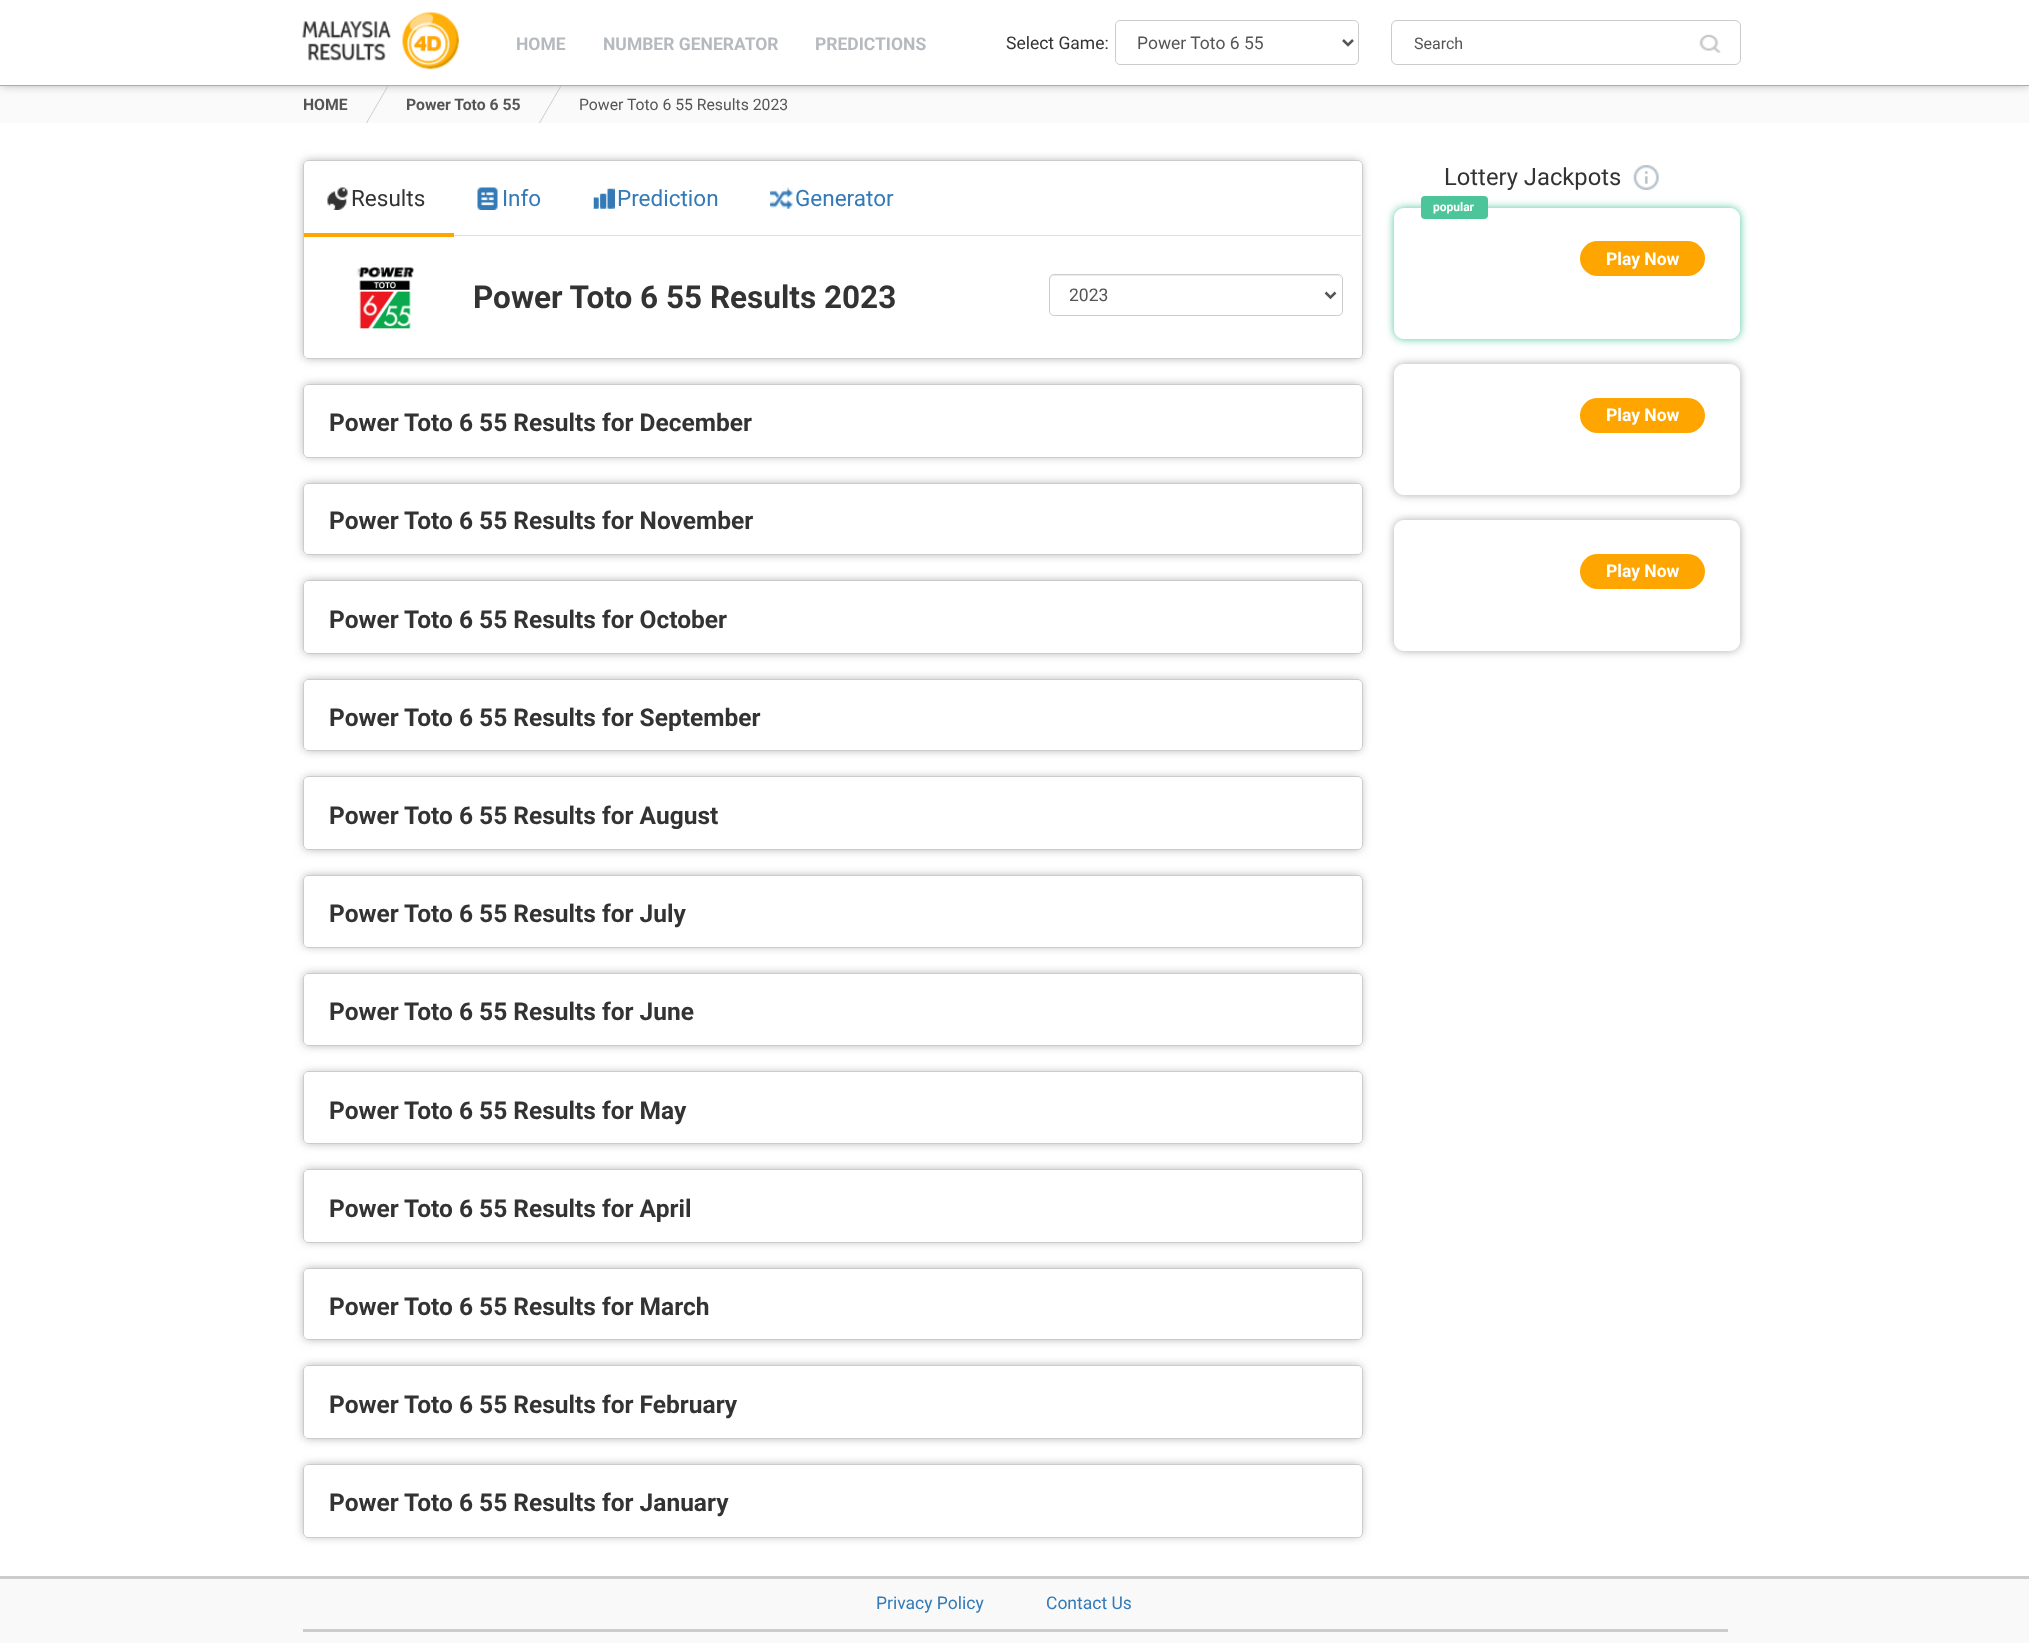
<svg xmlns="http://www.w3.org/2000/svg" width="2029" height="1643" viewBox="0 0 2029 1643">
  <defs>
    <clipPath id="clip1"><rect x="284" y="85" width="1462" height="38"/></clipPath>
    <clipPath id="clip2"><rect x="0" y="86" width="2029" height="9"/></clipPath>
    <filter id="blur1" x="-50%" y="-200%" width="200%" height="500%"><feGaussianBlur stdDeviation="5"/></filter>
    <clipPath id="clip3"><path d="M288 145H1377V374H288ZM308 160H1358C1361 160 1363 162 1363 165V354C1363 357 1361 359 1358 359H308C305 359 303 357 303 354V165C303 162 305 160 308 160Z" clip-rule="evenodd"/></clipPath>
    <clipPath id="clip4"><path d="M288 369H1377V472H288ZM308 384H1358C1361 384 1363 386 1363 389V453C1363 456 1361 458 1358 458H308C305 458 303 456 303 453V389C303 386 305 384 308 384Z" clip-rule="evenodd"/></clipPath>
    <clipPath id="clip5"><path d="M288 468H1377V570H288ZM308 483H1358C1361 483 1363 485 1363 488V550C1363 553 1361 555 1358 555H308C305 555 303 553 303 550V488C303 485 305 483 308 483Z" clip-rule="evenodd"/></clipPath>
    <clipPath id="clip6"><path d="M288 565H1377V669H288ZM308 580H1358C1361 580 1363 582 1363 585V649C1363 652 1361 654 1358 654H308C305 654 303 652 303 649V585C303 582 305 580 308 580Z" clip-rule="evenodd"/></clipPath>
    <clipPath id="clip7"><path d="M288 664H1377V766H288ZM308 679H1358C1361 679 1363 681 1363 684V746C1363 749 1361 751 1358 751H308C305 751 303 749 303 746V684C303 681 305 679 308 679Z" clip-rule="evenodd"/></clipPath>
    <clipPath id="clip8"><path d="M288 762H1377V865H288ZM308 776H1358C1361 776 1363 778 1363 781V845C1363 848 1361 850 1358 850H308C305 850 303 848 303 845V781C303 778 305 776 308 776Z" clip-rule="evenodd"/></clipPath>
    <clipPath id="clip9"><path d="M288 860H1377V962H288ZM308 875H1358C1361 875 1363 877 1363 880V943C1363 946 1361 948 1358 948H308C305 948 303 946 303 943V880C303 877 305 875 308 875Z" clip-rule="evenodd"/></clipPath>
    <clipPath id="clip10"><path d="M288 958H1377V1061H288ZM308 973H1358C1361 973 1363 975 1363 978V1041C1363 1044 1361 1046 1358 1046H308C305 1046 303 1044 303 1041V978C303 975 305 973 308 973Z" clip-rule="evenodd"/></clipPath>
    <clipPath id="clip11"><path d="M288 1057H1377V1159H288ZM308 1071H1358C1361 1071 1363 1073 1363 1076V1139C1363 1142 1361 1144 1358 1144H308C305 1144 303 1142 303 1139V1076C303 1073 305 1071 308 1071Z" clip-rule="evenodd"/></clipPath>
    <clipPath id="clip12"><path d="M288 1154H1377V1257H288ZM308 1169H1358C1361 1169 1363 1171 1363 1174V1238C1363 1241 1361 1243 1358 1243H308C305 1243 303 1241 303 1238V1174C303 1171 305 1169 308 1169Z" clip-rule="evenodd"/></clipPath>
    <clipPath id="clip13"><path d="M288 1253H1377V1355H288ZM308 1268H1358C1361 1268 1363 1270 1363 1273V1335C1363 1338 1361 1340 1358 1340H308C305 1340 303 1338 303 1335V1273C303 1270 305 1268 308 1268Z" clip-rule="evenodd"/></clipPath>
    <clipPath id="clip14"><path d="M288 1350H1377V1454H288ZM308 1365H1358C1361 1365 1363 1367 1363 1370V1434C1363 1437 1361 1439 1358 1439H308C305 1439 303 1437 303 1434V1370C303 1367 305 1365 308 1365Z" clip-rule="evenodd"/></clipPath>
    <clipPath id="clip15"><path d="M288 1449H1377V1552H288ZM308 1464H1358C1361 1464 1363 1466 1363 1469V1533C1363 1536 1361 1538 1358 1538H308C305 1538 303 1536 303 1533V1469C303 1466 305 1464 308 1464Z" clip-rule="evenodd"/></clipPath>
    <clipPath id="clip16"><path d="M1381 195H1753V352H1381ZM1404 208H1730C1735.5 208 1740 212.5 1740 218V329C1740 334.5 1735.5 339 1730 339H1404C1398.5 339 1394 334.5 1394 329V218C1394 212.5 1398.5 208 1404 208Z" clip-rule="evenodd"/></clipPath>
    <filter id="blur2" x="-50%" y="-200%" width="200%" height="500%"><feGaussianBlur stdDeviation="4"/></filter>
    <clipPath id="clip17"><path d="M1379 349H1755V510H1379ZM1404 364H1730C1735.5 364 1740 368.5 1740 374V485C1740 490.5 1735.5 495 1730 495H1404C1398.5 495 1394 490.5 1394 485V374C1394 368.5 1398.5 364 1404 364Z" clip-rule="evenodd"/></clipPath>
    <filter id="blur3" x="-50%" y="-200%" width="200%" height="500%"><feGaussianBlur stdDeviation="4.5"/></filter>
    <clipPath id="clip18"><path d="M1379 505H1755V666H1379ZM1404 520H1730C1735.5 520 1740 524.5 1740 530V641C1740 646.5 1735.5 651 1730 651H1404C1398.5 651 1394 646.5 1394 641V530C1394 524.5 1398.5 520 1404 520Z" clip-rule="evenodd"/></clipPath>
  </defs>
  <rect width="100%" height="100%" fill="#ffffff"/>
  <rect x="0" y="86" width="2029" height="37" fill="#fafafa"/>
  <g clip-path="url(#clip1)">
    <path d="M388 85H389L360 135H359Z" fill="#cccccc"/>
    <path d="M561 85H562L533 135H532Z" fill="#cccccc"/>
  </g>
  <g clip-path="url(#clip2)">
    <rect x="1" y="1" width="2028" height="84" fill="#aaaaaa" filter="url(#blur1)"/>
  </g>
  <rect x="0" y="85" width="2029" height="1" fill="#acacac"/>
  <image x="302" y="12" width="157" height="58" href="img1.png"/>
  <text x="516" y="50" font-family="Roboto" font-size="17.5" font-weight="bold" fill="#b6babf">HOME</text>
  <text x="603" y="50" font-family="Roboto" font-size="17.5" font-weight="bold" fill="#b6babf">NUMBER GENERATOR</text>
  <text x="815" y="50" font-family="Roboto" font-size="17.5" font-weight="bold" fill="#b6babf">PREDICTIONS</text>
  <text x="1006" y="49" font-family="Roboto" font-size="17.5" fill="#333333">Select Game:</text>
  <rect x="1115.5" y="20.5" width="243" height="44" rx="4.5" fill="none" stroke="#cccccc"/>
  <path d="M1343 40L1348 45L1353 40" fill="none" stroke="#555555" stroke-width="2.5"/>
  <text x="1137" y="49" font-family="Roboto" font-size="17.5" fill="#555555">Power Toto 6 55</text>
  <image x="1699" y="34" width="22" height="19" href="img2.png"/>
  <rect x="1391.5" y="20.5" width="349" height="44" rx="5.5" fill="none" stroke="#cccccc"/>
  <text x="1414" y="49" font-family="Roboto" font-size="16" fill="#555555">Search</text>
  <text x="303" y="110" font-family="Roboto" font-size="15.75" font-weight="bold" fill="#555555">HOME</text>
  <text x="406" y="110" font-family="Roboto" font-size="15.75" font-weight="bold" fill="#555555">Power Toto 6 55</text>
  <text x="579" y="110" font-family="Roboto" font-size="15.75" fill="#555555">Power Toto 6 55 Results 2023</text>
  <g clip-path="url(#clip3)">
    <rect x="304" y="161" width="1057" height="197" rx="4" fill="#aaaaaa" filter="url(#blur1)"/>
  </g>
  <rect x="303.5" y="160.5" width="1059" height="198" rx="4.5" fill="none" stroke="#cccccc"/>
  <rect x="454" y="235" width="907" height="1" fill="#dfdfdf"/>
  <rect x="304" y="233" width="150" height="4" fill="#ffa500"/>
  <image x="327" y="187" width="21" height="23" href="img3.png"/>
  <text x="351" y="206" font-family="Roboto" font-size="22.5" fill="#333333">Results</text>
  <image x="477" y="187" width="21" height="23" href="img4.png"/>
  <text x="502" y="206" font-family="Roboto" font-size="22.5" fill="#337ab7">Info</text>
  <image x="593" y="188" width="22" height="21" href="img5.png"/>
  <text x="617" y="206" font-family="Roboto" font-size="22.5" fill="#337ab7">Prediction</text>
  <image x="770" y="187" width="23" height="22" href="img6.png"/>
  <text x="795" y="206" font-family="Roboto" font-size="22.5" fill="#337ab7">Generator</text>
  <image x="356" y="267" width="58" height="62" href="img7.png"/>
  <text x="473" y="308" font-family="Roboto" font-size="31.5" font-weight="bold" fill="#333333">Power Toto 6 55 Results 2023</text>
  <path d="M1054 276H1338C1340 276 1341 278 1341 280C1341 277 1340 275 1337 275H1054C1051 275 1050 277 1050 280C1050 278 1052 276 1054 276Z" fill="#ececec"/>
  <rect x="1049.5" y="274.5" width="293" height="41" rx="4.5" fill="none" stroke="#cccccc"/>
  <path d="M1325.5 292.5L1330.5 297.5L1335.5 292.5" fill="none" stroke="#555555" stroke-width="2.5"/>
  <text x="1069" y="301" font-family="Roboto" font-size="17.5" fill="#555555">2023</text>
  <g clip-path="url(#clip4)">
    <rect x="304" y="385" width="1057" height="71" rx="4" fill="#aaaaaa" filter="url(#blur1)"/>
  </g>
  <rect x="303.5" y="384.5" width="1059" height="73" rx="4.5" fill="none" stroke="#cccccc"/>
  <text x="329" y="431" font-family="Roboto" font-size="24.5" font-weight="bold" fill="#333333">Power Toto 6 55 Results for December</text>
  <g clip-path="url(#clip5)">
    <rect x="304" y="484" width="1057" height="70" rx="4" fill="#aaaaaa" filter="url(#blur1)"/>
  </g>
  <rect x="303.5" y="483.5" width="1059" height="71" rx="4.5" fill="none" stroke="#cccccc"/>
  <text x="329" y="529" font-family="Roboto" font-size="24.5" font-weight="bold" fill="#333333">Power Toto 6 55 Results for November</text>
  <g clip-path="url(#clip6)">
    <rect x="304" y="581" width="1057" height="72" rx="4" fill="#aaaaaa" filter="url(#blur1)"/>
  </g>
  <rect x="303.5" y="580.5" width="1059" height="73" rx="4.5" fill="none" stroke="#cccccc"/>
  <text x="329" y="628" font-family="Roboto" font-size="24.5" font-weight="bold" fill="#333333">Power Toto 6 55 Results for October</text>
  <g clip-path="url(#clip7)">
    <rect x="304" y="680" width="1057" height="70" rx="4" fill="#aaaaaa" filter="url(#blur1)"/>
  </g>
  <rect x="303.5" y="679.5" width="1059" height="71" rx="4.5" fill="none" stroke="#cccccc"/>
  <text x="329" y="726" font-family="Roboto" font-size="24.5" font-weight="bold" fill="#333333">Power Toto 6 55 Results for September</text>
  <g clip-path="url(#clip8)">
    <rect x="304" y="778" width="1057" height="71" rx="4" fill="#aaaaaa" filter="url(#blur1)"/>
  </g>
  <rect x="303.5" y="776.5" width="1059" height="73" rx="4.5" fill="none" stroke="#cccccc"/>
  <text x="329" y="824" font-family="Roboto" font-size="24.5" font-weight="bold" fill="#333333">Power Toto 6 55 Results for August</text>
  <g clip-path="url(#clip9)">
    <rect x="304" y="876" width="1057" height="70" rx="4" fill="#aaaaaa" filter="url(#blur1)"/>
  </g>
  <rect x="303.5" y="875.5" width="1059" height="72" rx="4.5" fill="none" stroke="#cccccc"/>
  <text x="329" y="922" font-family="Roboto" font-size="24.5" font-weight="bold" fill="#333333">Power Toto 6 55 Results for July</text>
  <g clip-path="url(#clip10)">
    <rect x="304" y="974" width="1057" height="71" rx="4" fill="#aaaaaa" filter="url(#blur1)"/>
  </g>
  <rect x="303.5" y="973.5" width="1059" height="72" rx="4.5" fill="none" stroke="#cccccc"/>
  <text x="329" y="1020" font-family="Roboto" font-size="24.5" font-weight="bold" fill="#333333">Power Toto 6 55 Results for June</text>
  <g clip-path="url(#clip11)">
    <rect x="304" y="1073" width="1057" height="70" rx="4" fill="#aaaaaa" filter="url(#blur1)"/>
  </g>
  <rect x="303.5" y="1071.5" width="1059" height="72" rx="4.5" fill="none" stroke="#cccccc"/>
  <text x="329" y="1119" font-family="Roboto" font-size="24.5" font-weight="bold" fill="#333333">Power Toto 6 55 Results for May</text>
  <g clip-path="url(#clip12)">
    <rect x="304" y="1170" width="1057" height="71" rx="4" fill="#aaaaaa" filter="url(#blur1)"/>
  </g>
  <rect x="303.5" y="1169.5" width="1059" height="73" rx="4.5" fill="none" stroke="#cccccc"/>
  <text x="329" y="1217" font-family="Roboto" font-size="24.5" font-weight="bold" fill="#333333">Power Toto 6 55 Results for April</text>
  <g clip-path="url(#clip13)">
    <rect x="304" y="1269" width="1057" height="70" rx="4" fill="#aaaaaa" filter="url(#blur1)"/>
  </g>
  <rect x="303.5" y="1268.5" width="1059" height="71" rx="4.5" fill="none" stroke="#cccccc"/>
  <text x="329" y="1315" font-family="Roboto" font-size="24.5" font-weight="bold" fill="#333333">Power Toto 6 55 Results for March</text>
  <g clip-path="url(#clip14)">
    <rect x="304" y="1366" width="1057" height="72" rx="4" fill="#aaaaaa" filter="url(#blur1)"/>
  </g>
  <rect x="303.5" y="1365.5" width="1059" height="73" rx="4.5" fill="none" stroke="#cccccc"/>
  <text x="329" y="1413" font-family="Roboto" font-size="24.5" font-weight="bold" fill="#333333">Power Toto 6 55 Results for February</text>
  <g clip-path="url(#clip15)">
    <rect x="304" y="1465" width="1057" height="71" rx="4" fill="#aaaaaa" filter="url(#blur1)"/>
  </g>
  <rect x="303.5" y="1464.5" width="1059" height="73" rx="4.5" fill="none" stroke="#cccccc"/>
  <text x="329" y="1511" font-family="Roboto" font-size="24.5" font-weight="bold" fill="#333333">Power Toto 6 55 Results for January</text>
  <text x="1444" y="185" font-family="Roboto" font-size="23.75" fill="#333333">Lottery Jackpots</text>
  <image x="1633" y="165" width="26" height="25" href="img8.png"/>
  <g clip-path="url(#clip16)">
    <rect x="1394" y="208" width="346" height="131" rx="10" fill="#4dc59a" filter="url(#blur2)"/>
  </g>
  <rect x="1421" y="196" width="67" height="23" rx="4" fill="#4dc59a"/>
  <text x="1433" y="211" font-family="Roboto" font-size="12" font-weight="bold" fill="#ffffff">popular</text>
  <rect x="1580" y="241" width="125" height="35" rx="17.5" fill="#ffa500"/>
  <text x="1606" y="265" font-family="Roboto" font-size="17.5" font-weight="bold" fill="#ffffff">Play Now</text>
  <g clip-path="url(#clip17)">
    <rect x="1394" y="364" width="346" height="131" rx="10" fill="#aaaaaa" filter="url(#blur3)"/>
  </g>
  <rect x="1580" y="398" width="125" height="35" rx="17.5" fill="#ffa500"/>
  <text x="1606" y="421" font-family="Roboto" font-size="17.5" font-weight="bold" fill="#ffffff">Play Now</text>
  <g clip-path="url(#clip18)">
    <rect x="1394" y="520" width="346" height="131" rx="10" fill="#aaaaaa" filter="url(#blur3)"/>
  </g>
  <rect x="1580" y="554" width="125" height="35" rx="17.5" fill="#ffa500"/>
  <text x="1606" y="577" font-family="Roboto" font-size="17.5" font-weight="bold" fill="#ffffff">Play Now</text>
  <rect x="0" y="1579" width="2029" height="64" fill="#f9f9f9"/>
  <rect x="0" y="1576" width="2029" height="3" fill="#cccccc"/>
  <text x="876" y="1609" font-family="Roboto" font-size="17.5" fill="#337ab7">Privacy Policy</text>
  <text x="1046" y="1609" font-family="Roboto" font-size="17.5" fill="#337ab7">Contact Us</text>
  <rect x="303" y="1629" width="1425" height="3" fill="#cccccc"/>
</svg>
